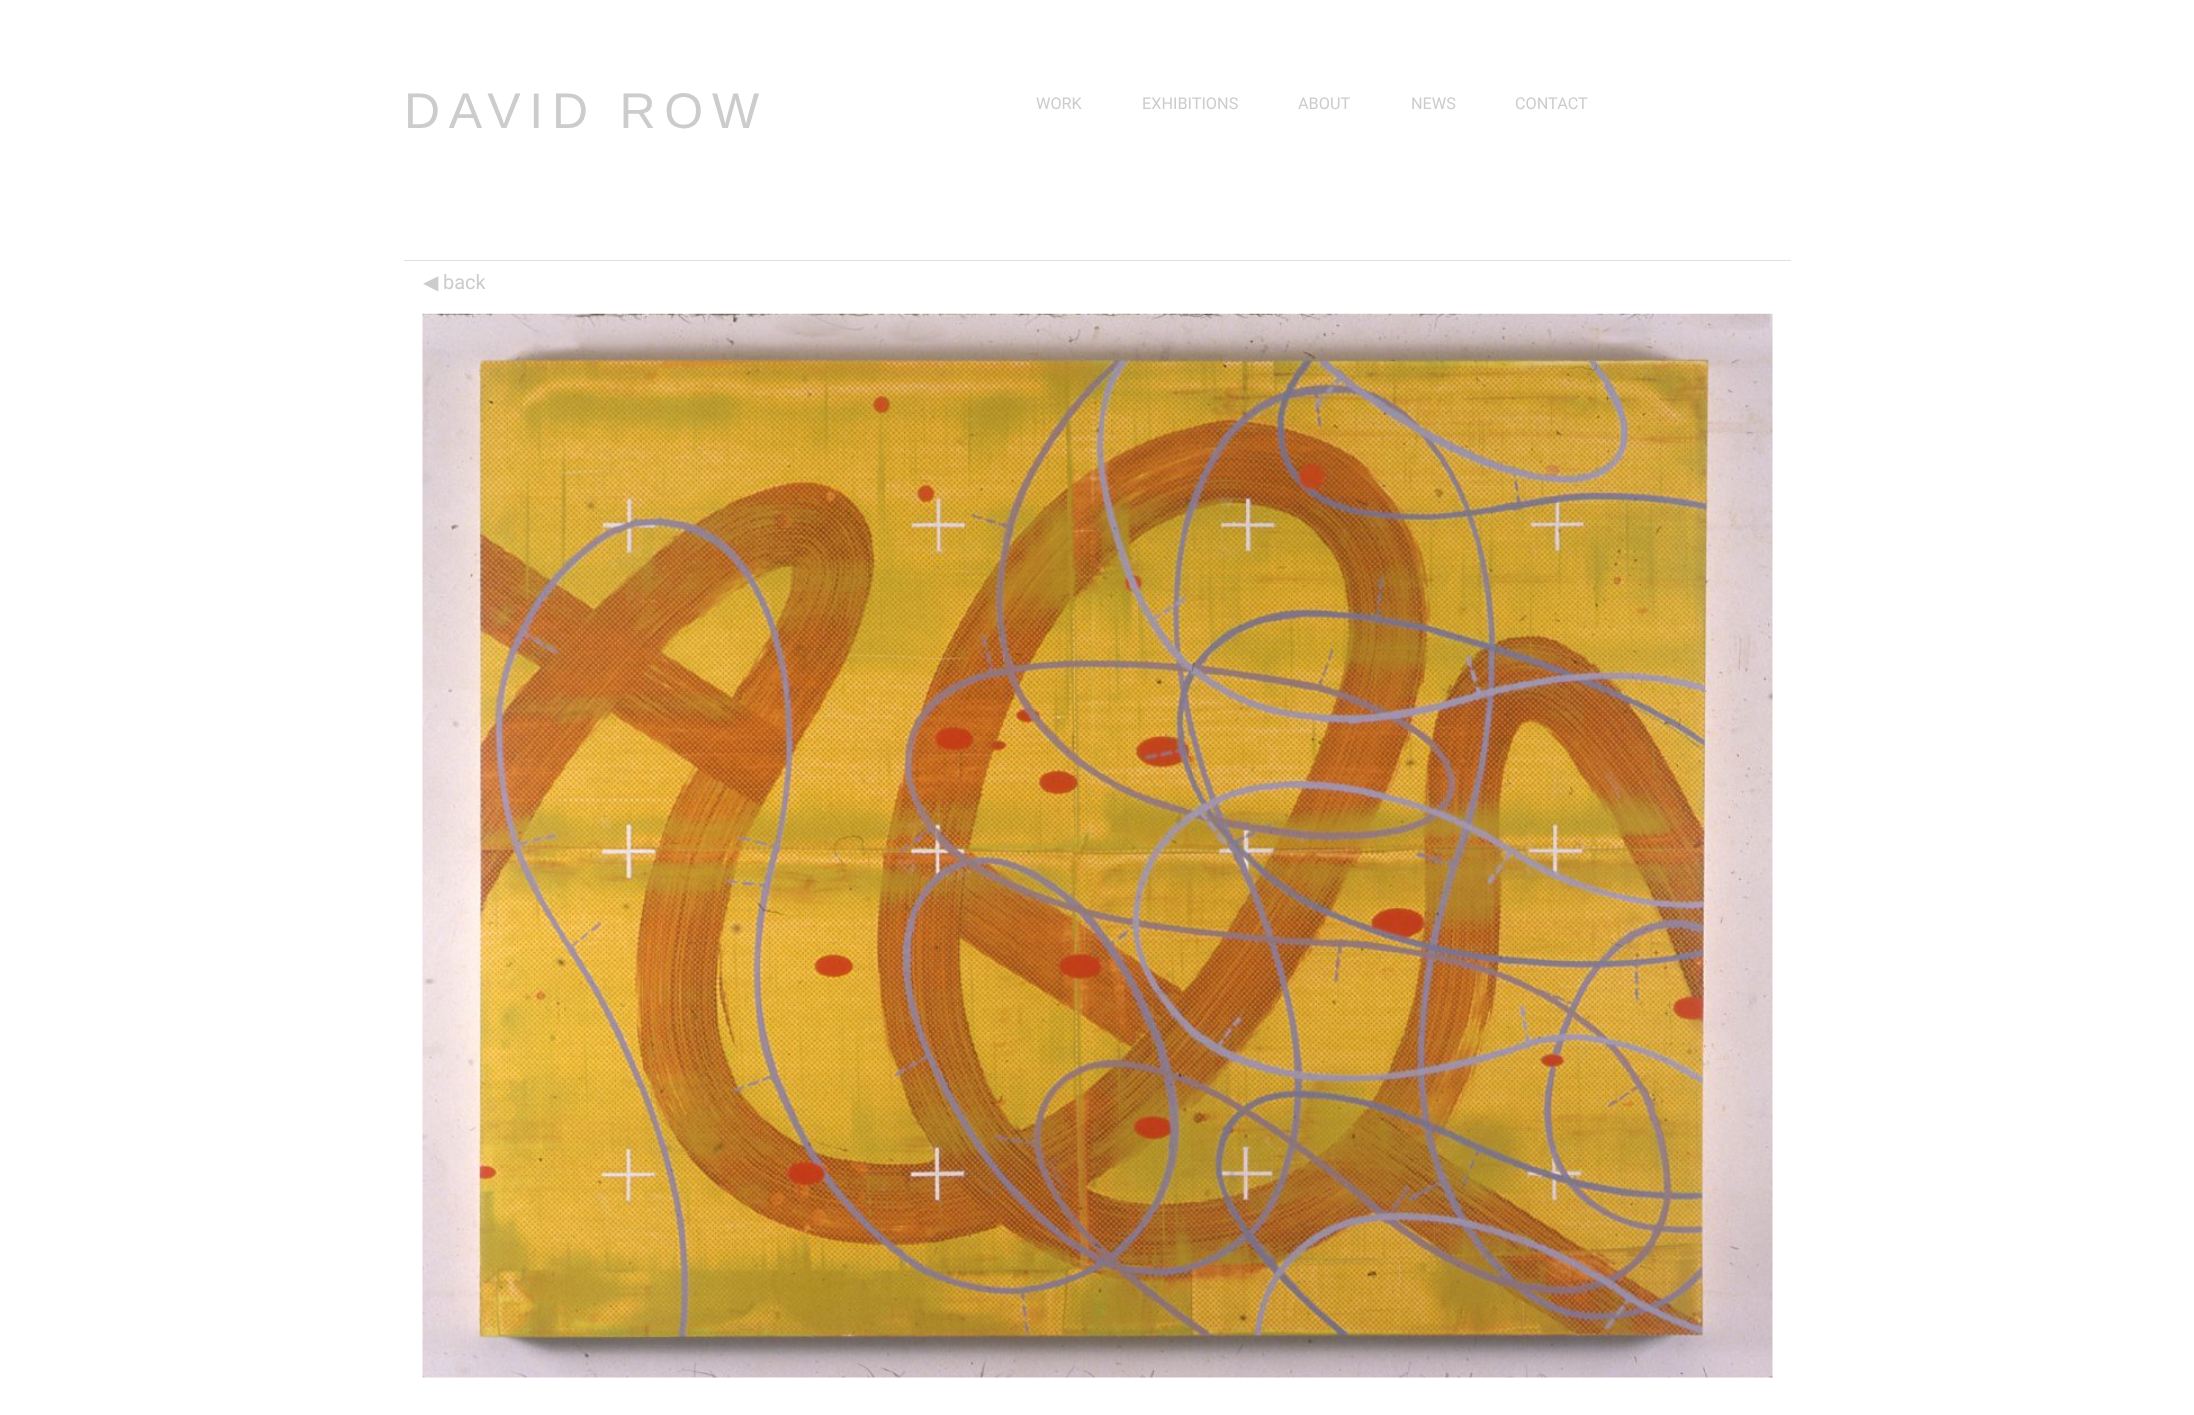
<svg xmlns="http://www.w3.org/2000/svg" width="2194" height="1415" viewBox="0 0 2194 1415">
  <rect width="100%" height="100%" fill="#ffffff"/>
  <text x="404" y="128" font-family="Liberation Sans" font-size="50" letter-spacing="8.75" fill="#cccccc">DAVID ROW</text>
  <text x="1036" y="109" font-family="Roboto" font-size="16.25" fill="#cccccc">WORK</text>
  <text x="1142" y="109" font-family="Roboto" font-size="16.25" fill="#cccccc">EXHIBITIONS</text>
  <text x="1298" y="109" font-family="Roboto" font-size="16.25" fill="#cccccc">ABOUT</text>
  <text x="1411" y="109" font-family="Roboto" font-size="16.25" fill="#cccccc">NEWS</text>
  <text x="1515" y="109" font-family="Roboto" font-size="16.25" fill="#cccccc">CONTACT</text>
  <rect x="404" y="260" width="1387" height="1" fill="#dee2e6"/>
  <text x="423" y="289" font-family="DejaVu Sans" font-size="20" fill="#cccccc">◀︎</text>
  <text x="443" y="289" font-family="Roboto" font-size="20" fill="#cccccc">back</text>
  <image x="422" y="313" width="1351" height="1065" href="img1.png"/>
</svg>
